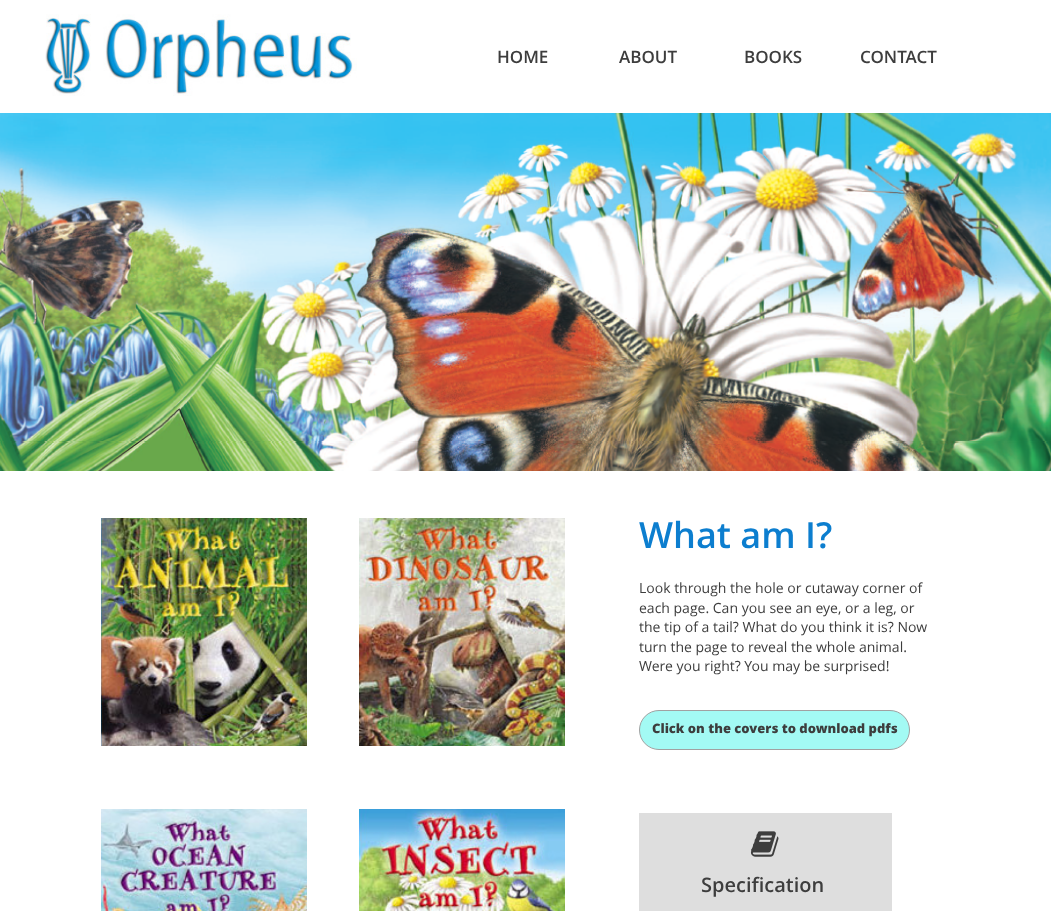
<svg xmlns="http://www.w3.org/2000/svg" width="1051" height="911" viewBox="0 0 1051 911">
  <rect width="100%" height="100%" fill="#ffffff"/>
  <image x="45" y="14" width="312" height="82" href="img1.png"/>
  <text x="497" y="63" font-family="Open Sans" font-size="17" font-weight="600" fill="#3d3d3d">HOME</text>
  <text x="619" y="63" font-family="Open Sans" font-size="17" font-weight="600" fill="#3d3d3d">ABOUT</text>
  <text x="744" y="63" font-family="Open Sans" font-size="17" font-weight="600" fill="#3d3d3d">BOOKS</text>
  <text x="860" y="63" font-family="Open Sans" font-size="17" font-weight="600" fill="#3d3d3d">CONTACT</text>
  <image x="0" y="113" width="1051" height="358" href="img2.png"/>
  <image x="101" y="518" width="206" height="228" href="img3.png"/>
  <image x="359" y="518" width="206" height="228" href="img4.png"/>
  <image x="101" y="809" width="206" height="102" href="img5.png"/>
  <image x="359" y="809" width="206" height="102" href="img6.png"/>
  <text x="639" y="548" font-family="Open Sans" font-size="36" font-weight="600" fill="#0c7ecf">What am I?</text>
  <text x="639" y="593" font-family="Open Sans" font-size="14" fill="#3d3d3d">Look through the hole or cutaway corner of</text>
  <text x="639" y="613" font-family="Open Sans" font-size="14" fill="#3d3d3d">each page. Can you see an eye, or a leg, or</text>
  <text x="639" y="632" font-family="Open Sans" font-size="14" fill="#3d3d3d">the tip of a tail? What do you think it is? Now</text>
  <text x="639" y="652" font-family="Open Sans" font-size="14" fill="#3d3d3d">turn the page to reveal the whole animal.</text>
  <text x="639" y="671" font-family="Open Sans" font-size="14" fill="#3d3d3d">Were you right? You may be surprised!</text>
  <rect x="639.5" y="710.5" width="270" height="39" rx="19.5" fill="#a3faf4" stroke="#a1a1a1"/>
  <text x="652" y="733" font-family="Open Sans" font-size="13" font-weight="800" fill="#3d3d3d">Click on the covers to download pdfs</text>
  <rect x="639" y="813" width="253" height="98" fill="#dedede"/>
  <image x="750" y="831" width="29" height="26" href="img7.png"/>
  <text x="701" y="892" font-family="Open Sans" font-size="20" font-weight="600" fill="#3d3d3d">Specification</text>
</svg>
